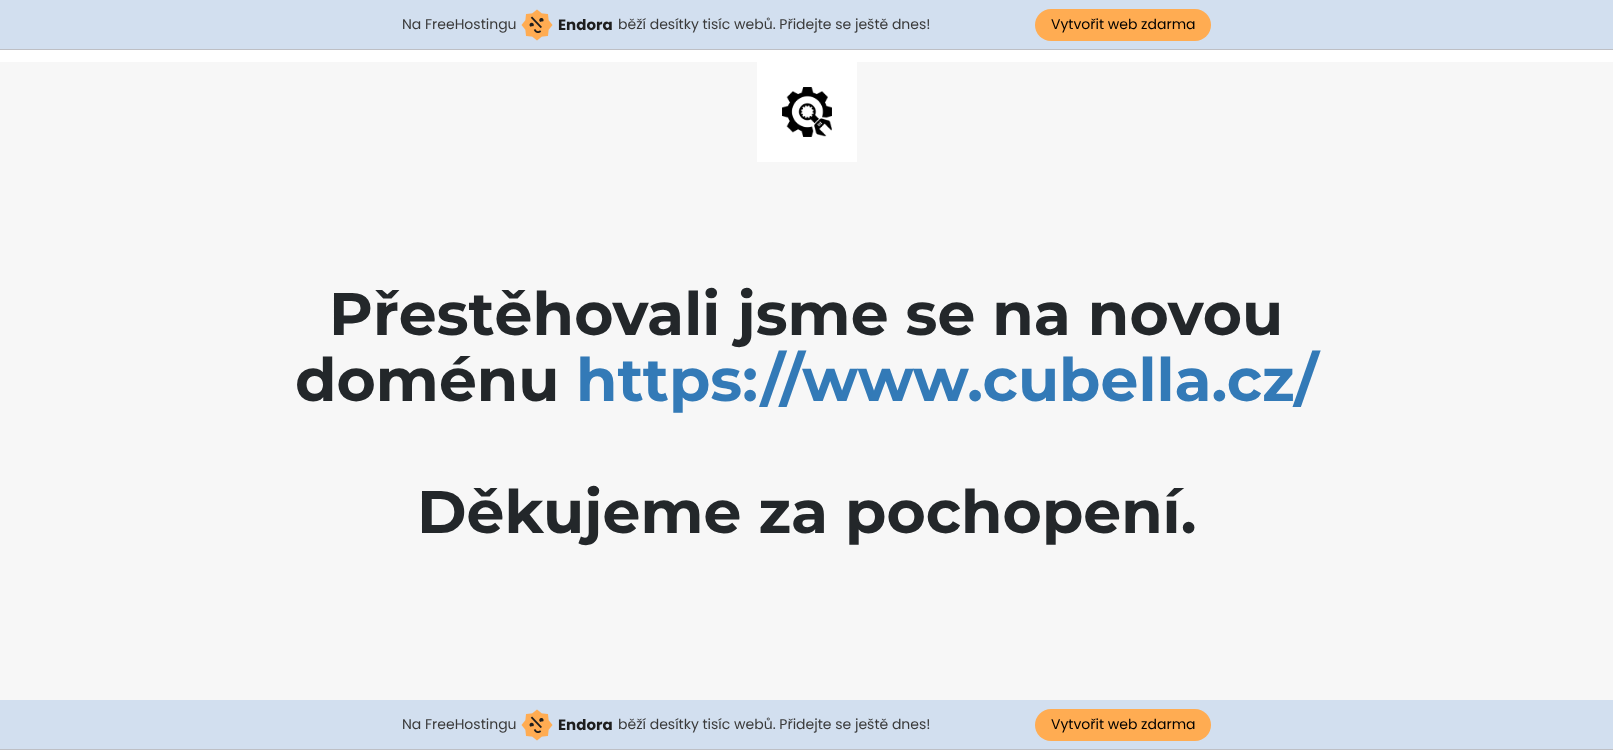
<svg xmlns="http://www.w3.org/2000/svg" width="1613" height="750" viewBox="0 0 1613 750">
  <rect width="100%" height="100%" fill="#f7f7f7"/>
  <rect x="0" y="0" width="1613" height="49" fill="#d2dfef"/>
  <rect x="0" y="49" width="1613" height="1" fill="#bebfc4"/>
  <text x="402" y="29" font-family="Poppins" font-size="14" fill="#3a3a3a">Na FreeHostingu</text>
  <image x="521" y="9" width="32" height="32" href="img1.png"/>
  <text x="558" y="30" font-family="Poppins" font-size="15" font-weight="bold" fill="#1e1e1e">Endora</text>
  <text x="618" y="29" font-family="Poppins" font-size="14" fill="#3a3a3a">běží desítky tisíc webů. Přidejte se ještě dnes!</text>
  <rect x="1035" y="9" width="176" height="32" rx="16" fill="#ffac52"/>
  <text x="1051" y="29" font-family="Poppins" font-size="14" fill="#000000">Vytvořit web zdarma</text>
  <rect x="0" y="50" width="1613" height="12" fill="#ffffff"/>
  <rect x="757" y="62" width="100" height="100" fill="#ffffff"/>
  <image x="782" y="87" width="50" height="50" href="img2.png"/>
  <text x="329" y="335" font-family="Montserrat" font-size="60" font-weight="100" fill="#23272a">Přestěhovali jsme se na novou</text>
  <text x="295" y="401" font-family="Montserrat" font-size="60" font-weight="100" fill="#23272a">doménu</text>
  <text x="576" y="401" font-family="Montserrat" font-size="60" font-weight="100" fill="#337ab7">https://www.cubella.cz/</text>
  <text x="417" y="533" font-family="Montserrat" font-size="60" font-weight="100" fill="#23272a">Děkujeme za pochopení.</text>
  <rect x="0" y="700" width="1613" height="49" fill="#d2dfef"/>
  <rect x="0" y="749" width="1613" height="1" fill="#bebfc4"/>
  <text x="402" y="729" font-family="Poppins" font-size="14" fill="#3a3a3a">Na FreeHostingu</text>
  <image x="521" y="709" width="32" height="32" href="img1.png"/>
  <text x="558" y="730" font-family="Poppins" font-size="15" font-weight="bold" fill="#1e1e1e">Endora</text>
  <text x="618" y="729" font-family="Poppins" font-size="14" fill="#3a3a3a">běží desítky tisíc webů. Přidejte se ještě dnes!</text>
  <rect x="1035" y="709" width="176" height="32" rx="16" fill="#ffac52"/>
  <text x="1051" y="729" font-family="Poppins" font-size="14" fill="#000000">Vytvořit web zdarma</text>
</svg>
